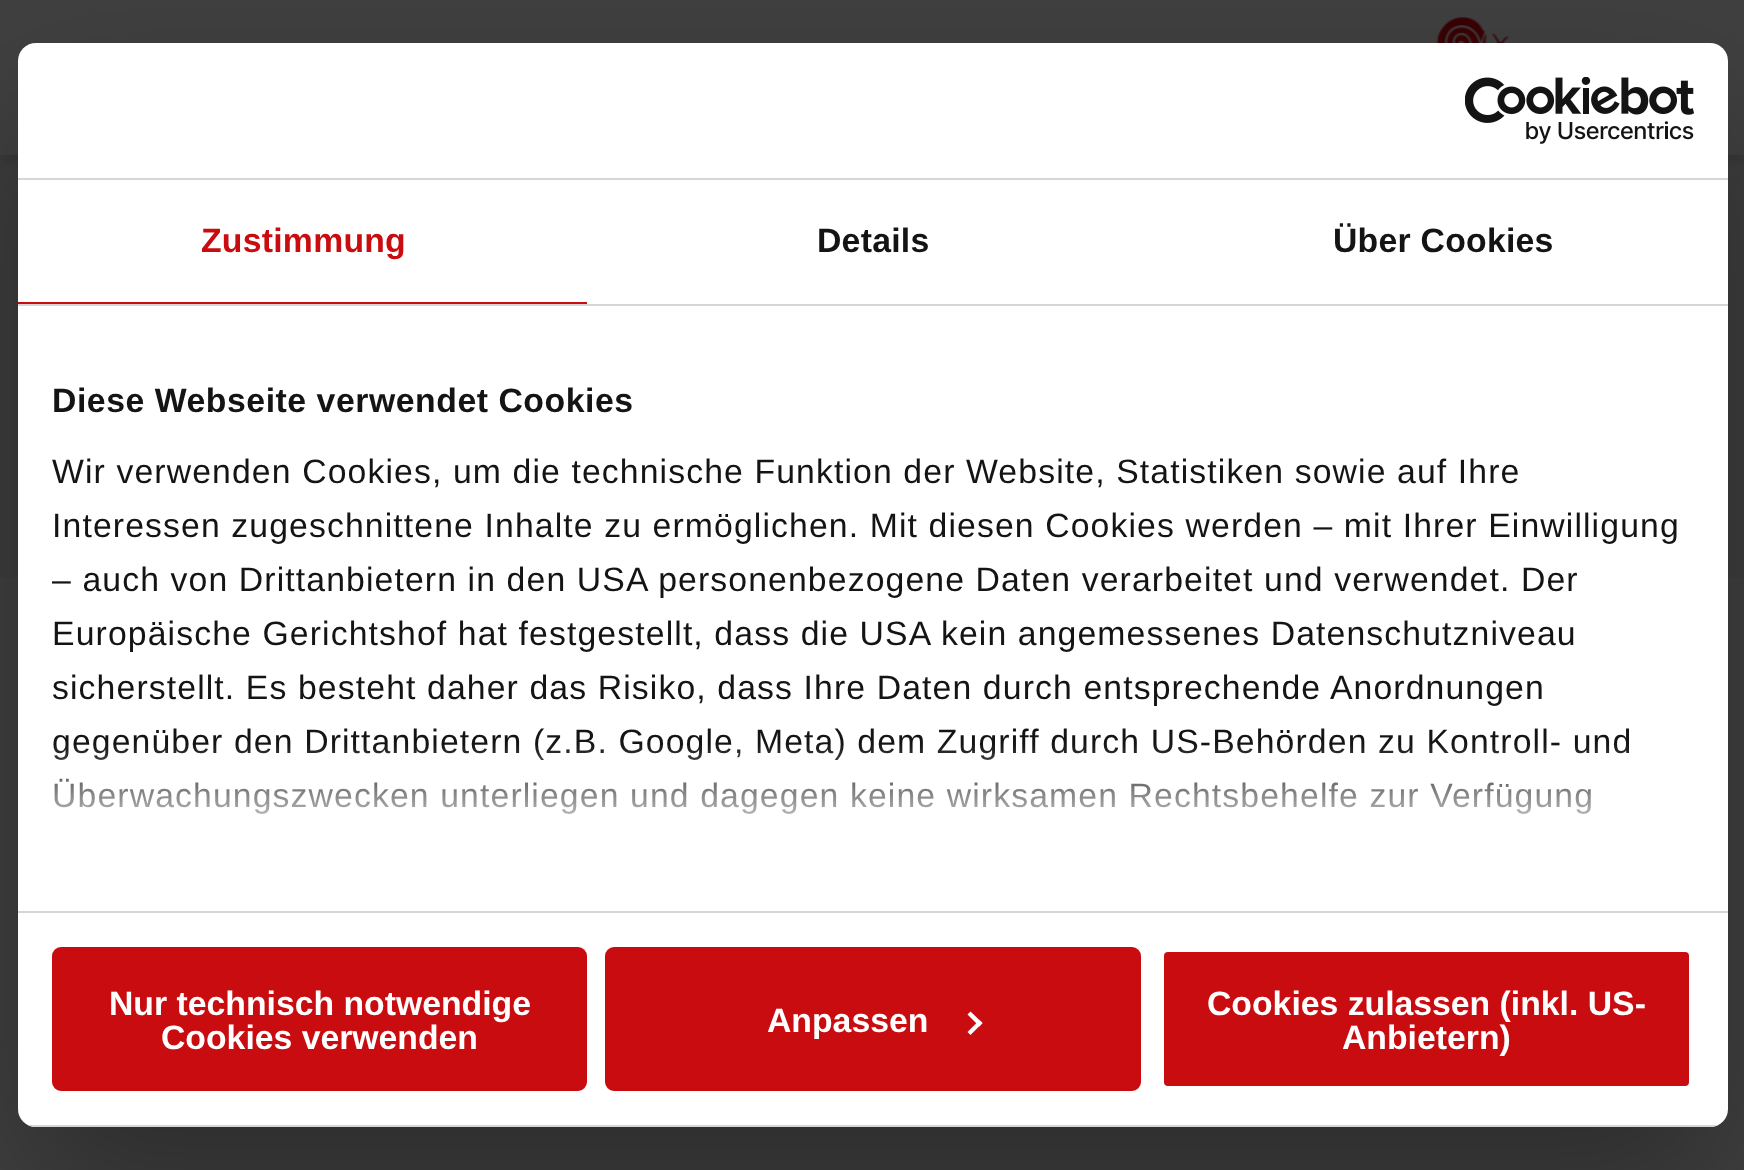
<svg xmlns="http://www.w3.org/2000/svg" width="1744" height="1170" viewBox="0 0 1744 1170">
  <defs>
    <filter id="blur1" x="-50%" y="-200%" width="200%" height="500%"><feGaussianBlur stdDeviation="5.5"/></filter>
    <filter id="blur2" x="-50%" y="-200%" width="200%" height="500%"><feGaussianBlur stdDeviation="76.5"/></filter>
    <linearGradient id="g1" gradientUnits="userSpaceOnUse" x1="858" y1="911" x2="858" y2="743"><stop offset="0" stop-color="#ffffff"/><stop offset="0.5" stop-color="#ffffff" stop-opacity="0.8"/><stop offset="1" stop-color="#ffffff" stop-opacity="0"/></linearGradient>
    <clipPath id="clip1"><rect x="18" y="43" width="1710" height="1084" rx="18"/></clipPath>
  </defs>
  <rect width="100%" height="100%" fill="#404040"/>
  <rect x="0" y="158" width="1744" height="420" fill="#3d3d3d"/>
  <rect x="-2" y="-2" width="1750" height="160" fill="#000000" fill-opacity="0.2" filter="url(#blur1)"/>
  <rect x="0" y="0" width="1744" height="155" fill="#404040"/>
  <image x="1436" y="17" width="73" height="26" href="img1.png"/>
  <rect x="18" y="115" width="1710" height="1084" rx="18" fill="#000000" fill-opacity="0.3" filter="url(#blur2)"/>
  <rect x="18" y="43" width="1710" height="1084" rx="18" fill="#ffffff"/>
  <rect x="18" y="178" width="1710" height="2" fill="#d6d6d6"/>
  <image x="1465" y="77" width="229" height="67" href="img2.png"/>
  <rect x="18" y="304" width="1710" height="2" fill="#d6d6d6"/>
  <rect x="18" y="302" width="569" height="2" fill="#c90c0f"/>
  <text x="201" y="252" font-family="Liberation Sans" font-size="33.75" font-weight="bold" letter-spacing="0.25" fill="#c90c0f">Zustimmung</text>
  <text x="817" y="252" font-family="Liberation Sans" font-size="33.75" font-weight="bold" letter-spacing="0.25" fill="#141414">Details</text>
  <text x="1333" y="252" font-family="Liberation Sans" font-size="33.75" font-weight="bold" letter-spacing="0.25" fill="#141414">Über Cookies</text>
  <rect x="18" y="911" width="1710" height="2" fill="#d6d6d6"/>
  <text x="52" y="412" font-family="Liberation Sans" font-size="33.75" font-weight="bold" letter-spacing="0.55" fill="#141414">Diese Webseite verwendet Cookies</text>
  <text x="52" y="483" font-family="Liberation Sans" font-size="33.75" letter-spacing="1.12" fill="#141414">Wir verwenden Cookies, um die technische Funktion der Website, Statistiken sowie auf Ihre</text>
  <text x="52" y="537" font-family="Liberation Sans" font-size="33.75" letter-spacing="1.12" fill="#141414">Interessen zugeschnittene Inhalte zu ermöglichen. Mit diesen Cookies werden – mit Ihrer Einwilligung</text>
  <text x="52" y="591" font-family="Liberation Sans" font-size="33.75" letter-spacing="1.12" fill="#141414">– auch von Drittanbietern in den USA personenbezogene Daten verarbeitet und verwendet. Der</text>
  <text x="52" y="645" font-family="Liberation Sans" font-size="33.75" letter-spacing="1.12" fill="#141414">Europäische Gerichtshof hat festgestellt, dass die USA kein angemessenes Datenschutzniveau</text>
  <text x="52" y="699" font-family="Liberation Sans" font-size="33.75" letter-spacing="1.12" fill="#141414">sicherstellt. Es besteht daher das Risiko, dass Ihre Daten durch entsprechende Anordnungen</text>
  <text x="52" y="753" font-family="Liberation Sans" font-size="33.75" letter-spacing="1.12" fill="#141414">gegenüber den Drittanbietern (z.B. Google, Meta) dem Zugriff durch US-Behörden zu Kontroll- und</text>
  <text x="52" y="807" font-family="Liberation Sans" font-size="33.75" letter-spacing="1.12" fill="#141414">Überwachungszwecken unterliegen und dagegen keine wirksamen Rechtsbehelfe zur Verfügung</text>
  <rect x="53" y="745" width="1577" height="69" fill="url(#g1)"/>
  <g clip-path="url(#clip1)">
    <rect x="28" y="1125" width="1690" height="2" fill="#d6d6d6"/>
  </g>
  <rect x="54.5" y="949.5" width="530" height="139" rx="6.5" fill="#c90c0f" stroke="#c90c0f" stroke-width="5"/>
  <text x="109" y="1015" font-family="Liberation Sans" font-size="33.75" font-weight="bold" fill="#ffffff">Nur technisch notwendige</text>
  <text x="161" y="1049" font-family="Liberation Sans" font-size="33.75" font-weight="bold" fill="#ffffff">Cookies verwenden</text>
  <rect x="607.5" y="949.5" width="531" height="139" rx="6.5" fill="#c90c0f" stroke="#c90c0f" stroke-width="5"/>
  <text x="767" y="1032" font-family="Liberation Sans" font-size="33.75" font-weight="bold" fill="#ffffff">Anpassen</text>
  <path d="M970.5 1011.5L982.5 1023L979.5 1026.5L967.5 1014.5Z" fill="#ffffff"/>
  <path d="M979.5 1020L982.5 1023L970.5 1035L967.5 1032Z" fill="#ffffff"/>
  <rect x="1161.5" y="949.5" width="530" height="139" rx="6.5" fill="#c90c0f" stroke="#ffffff" stroke-width="5"/>
  <text x="1207" y="1015" font-family="Liberation Sans" font-size="33.75" font-weight="bold" fill="#ffffff">Cookies zulassen (inkl. US-</text>
  <text x="1342" y="1049" font-family="Liberation Sans" font-size="33.75" font-weight="bold" fill="#ffffff">Anbietern)</text>
</svg>
